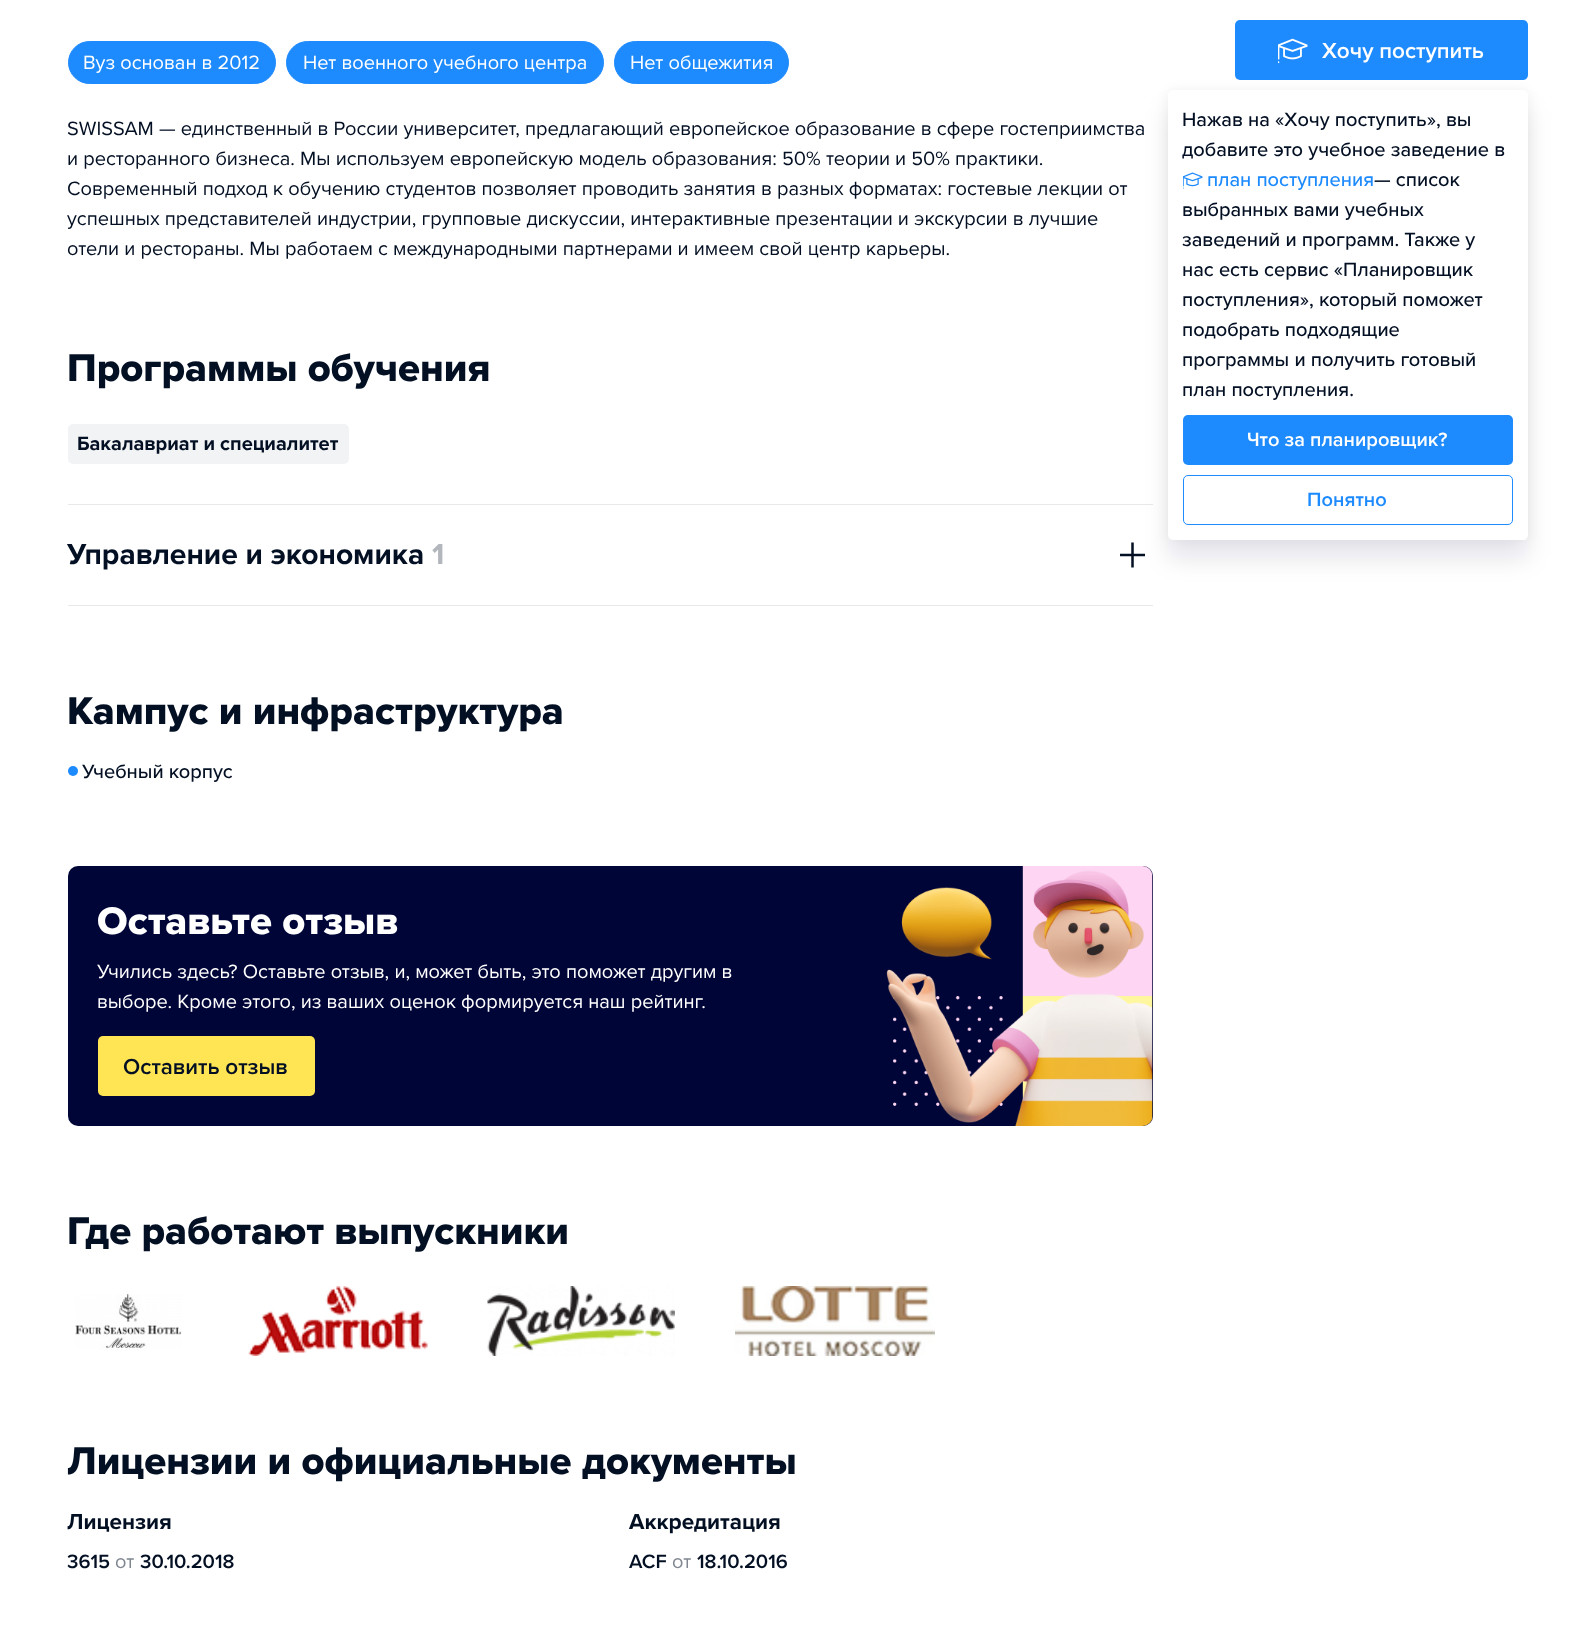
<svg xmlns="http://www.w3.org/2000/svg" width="1593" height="1643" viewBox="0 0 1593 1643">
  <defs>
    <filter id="blur1" x="-50%" y="-200%" width="200%" height="500%"><feGaussianBlur stdDeviation="6"/></filter>
    <filter id="blur2" x="-50%" y="-200%" width="200%" height="500%"><feGaussianBlur stdDeviation="12.5"/></filter>
  </defs>
  <rect width="100%" height="100%" fill="#ffffff"/>
  <rect x="68.5" y="41.5" width="207" height="42" rx="21" fill="#1d8afe" stroke="#1d8afe"/>
  <text x="83" y="69" font-family="Proxima Nova" font-size="20" fill="#ffffff">Вуз основан в 2012</text>
  <rect x="286.5" y="41.5" width="317" height="42" rx="21" fill="#1d8afe" stroke="#1d8afe"/>
  <text x="303" y="69" font-family="Proxima Nova" font-size="20" fill="#ffffff">Нет военного учебного центра</text>
  <rect x="614.5" y="41.5" width="174" height="42" rx="21" fill="#1d8afe" stroke="#1d8afe"/>
  <text x="630" y="69" font-family="Proxima Nova" font-size="20" fill="#ffffff">Нет общежития</text>
  <text x="67" y="135" font-family="Proxima Nova" font-size="20" fill="#030f23">SWISSAM — единственный в России университет, предлагающий европейское образование в сфере гостеприимства</text>
  <text x="67" y="165" font-family="Proxima Nova" font-size="20" fill="#030f23">и ресторанного бизнеса. Мы используем европейскую модель образования: 50% теории и 50% практики.</text>
  <text x="67" y="195" font-family="Proxima Nova" font-size="20" fill="#030f23">Современный подход к обучению студентов позволяет проводить занятия в разных форматах: гостевые лекции от</text>
  <text x="67" y="225" font-family="Proxima Nova" font-size="20" fill="#030f23">успешных представителей индустрии, групповые дискуссии, интерактивные презентации и экскурсии в лучшие</text>
  <text x="67" y="255" font-family="Proxima Nova" font-size="20" fill="#030f23">отели и рестораны. Мы работаем с международными партнерами и имеем свой центр карьеры.</text>
  <text x="67" y="381" font-family="Proxima Nova" font-size="40" font-weight="800" fill="#030f23">Программы обучения</text>
  <rect x="68" y="424" width="281" height="40" rx="5" fill="#f2f3f4"/>
  <text x="77" y="450" font-family="Proxima Nova" font-size="20" font-weight="bold" fill="#030f23">Бакалавриат и специалитет</text>
  <rect x="68" y="504" width="1085" height="1" fill="#e8e9eb"/>
  <rect x="68" y="605" width="1085" height="1" fill="#e8e9eb"/>
  <text x="67" y="564" font-family="Proxima Nova" font-size="30" font-weight="bold" fill="#030f23">Управление и экономика</text>
  <text x="432" y="564" font-family="Proxima Nova" font-size="30" font-weight="bold" fill="#b3b7bd">1</text>
  <image x="1120" y="542" width="25" height="26" href="img1.png"/>
  <text x="67" y="724" font-family="Proxima Nova" font-size="40" font-weight="800" fill="#030f23">Кампус и инфраструктура</text>
  <circle cx="73" cy="771" r="5" fill="#1d8afe"/>
  <text x="82" y="778" font-family="Proxima Nova" font-size="20" font-weight="500" fill="#030f23">Учебный корпус</text>
  <rect x="68" y="866" width="1085" height="260" rx="10" fill="#000537"/>
  <image x="886" y="866" width="267" height="260" href="img2.png"/>
  <text x="97" y="934" font-family="Proxima Nova" font-size="40" font-weight="800" fill="#ffffff">Оставьте отзыв</text>
  <text x="97" y="978" font-family="Proxima Nova" font-size="20" fill="#ffffff">Учились здесь? Оставьте отзыв, и, может быть, это поможет другим в</text>
  <text x="97" y="1008" font-family="Proxima Nova" font-size="20" fill="#ffffff">выборе. Кроме этого, из ваших оценок формируется наш рейтинг.</text>
  <rect x="98" y="1036" width="217" height="60" rx="5" fill="#ffe554"/>
  <text x="123" y="1074" font-family="Proxima Nova" font-size="22.5" font-weight="600" fill="#030f23">Оставить отзыв</text>
  <text x="67" y="1244" font-family="Proxima Nova" font-size="40" font-weight="800" fill="#030f23">Где работают выпускники</text>
  <image x="75" y="1294" width="107" height="56" href="img3.png"/>
  <image x="248" y="1286" width="180" height="70" href="img4.png"/>
  <image x="487" y="1286" width="188" height="70" href="img5.png"/>
  <image x="735" y="1286" width="200" height="70" href="img6.png"/>
  <text x="67" y="1474" font-family="Proxima Nova" font-size="40" font-weight="800" fill="#030f23">Лицензии и официальные документы</text>
  <text x="67" y="1529" font-family="Proxima Nova" font-size="22.5" font-weight="bold" fill="#030f23">Лицензия</text>
  <text x="67" y="1568" font-family="Proxima Nova" font-size="20" font-weight="600" fill="#030f23">3615</text>
  <text x="115" y="1568" font-family="Proxima Nova" font-size="20" fill="#818791">от</text>
  <text x="140" y="1568" font-family="Proxima Nova" font-size="20" font-weight="600" fill="#030f23">30.10.2018</text>
  <text x="629" y="1529" font-family="Proxima Nova" font-size="22.5" font-weight="bold" fill="#030f23">Аккредитация</text>
  <text x="629" y="1568" font-family="Proxima Nova" font-size="20" font-weight="600" fill="#030f23">ACF</text>
  <text x="672" y="1568" font-family="Proxima Nova" font-size="20" fill="#818791">от</text>
  <text x="697" y="1568" font-family="Proxima Nova" font-size="20" font-weight="600" fill="#030f23">18.10.2016</text>
  <rect x="1235" y="20" width="293" height="60" rx="5" fill="#1d8afe"/>
  <image x="1278" y="38" width="30" height="26" href="img7.png"/>
  <text x="1322" y="58" font-family="Proxima Nova" font-size="22.5" font-weight="600" fill="#ffffff">Хочу поступить</text>
  <rect x="1168" y="90" width="360" height="450" rx="5" fill="#030f23" fill-opacity="0.05" filter="url(#blur1)"/>
  <rect x="1168" y="109" width="360" height="450" rx="5" fill="#030f23" fill-opacity="0.1" filter="url(#blur2)"/>
  <rect x="1168" y="90" width="360" height="450" rx="5" fill="#ffffff"/>
  <text x="1182" y="126" font-family="Proxima Nova" font-size="20" font-weight="500" fill="#030f23">Нажав на «Хочу поступить», вы</text>
  <text x="1182" y="156" font-family="Proxima Nova" font-size="20" font-weight="500" fill="#030f23">добавите это учебное заведение в</text>
  <image x="1183" y="172" width="20" height="17" href="img8.png"/>
  <text x="1207" y="186" font-family="Proxima Nova" font-size="20" font-weight="500" fill="#1d8afe">план поступления</text>
  <text x="1374" y="186" font-family="Proxima Nova" font-size="20" font-weight="500" fill="#030f23">— список</text>
  <text x="1182" y="216" font-family="Proxima Nova" font-size="20" font-weight="500" fill="#030f23">выбранных вами учебных</text>
  <text x="1182" y="246" font-family="Proxima Nova" font-size="20" font-weight="500" fill="#030f23">заведений и программ. Также у</text>
  <text x="1182" y="276" font-family="Proxima Nova" font-size="20" font-weight="500" fill="#030f23">нас есть сервис «Планировщик</text>
  <text x="1182" y="306" font-family="Proxima Nova" font-size="20" font-weight="500" fill="#030f23">поступления», который поможет</text>
  <text x="1182" y="336" font-family="Proxima Nova" font-size="20" font-weight="500" fill="#030f23">подобрать подходящие</text>
  <text x="1182" y="366" font-family="Proxima Nova" font-size="20" font-weight="500" fill="#030f23">программы и получить готовый</text>
  <text x="1182" y="396" font-family="Proxima Nova" font-size="20" font-weight="500" fill="#030f23">план поступления.</text>
  <rect x="1183" y="415" width="330" height="50" rx="5" fill="#1d8afe"/>
  <text x="1247" y="446" font-family="Proxima Nova" font-size="20" font-weight="600" fill="#ffffff">Что за планировщик?</text>
  <rect x="1183.5" y="475.5" width="329" height="49" rx="4.5" fill="none" stroke="#1d8afe"/>
  <text x="1307" y="506" font-family="Proxima Nova" font-size="20" font-weight="600" fill="#1d8afe">Понятно</text>
</svg>
